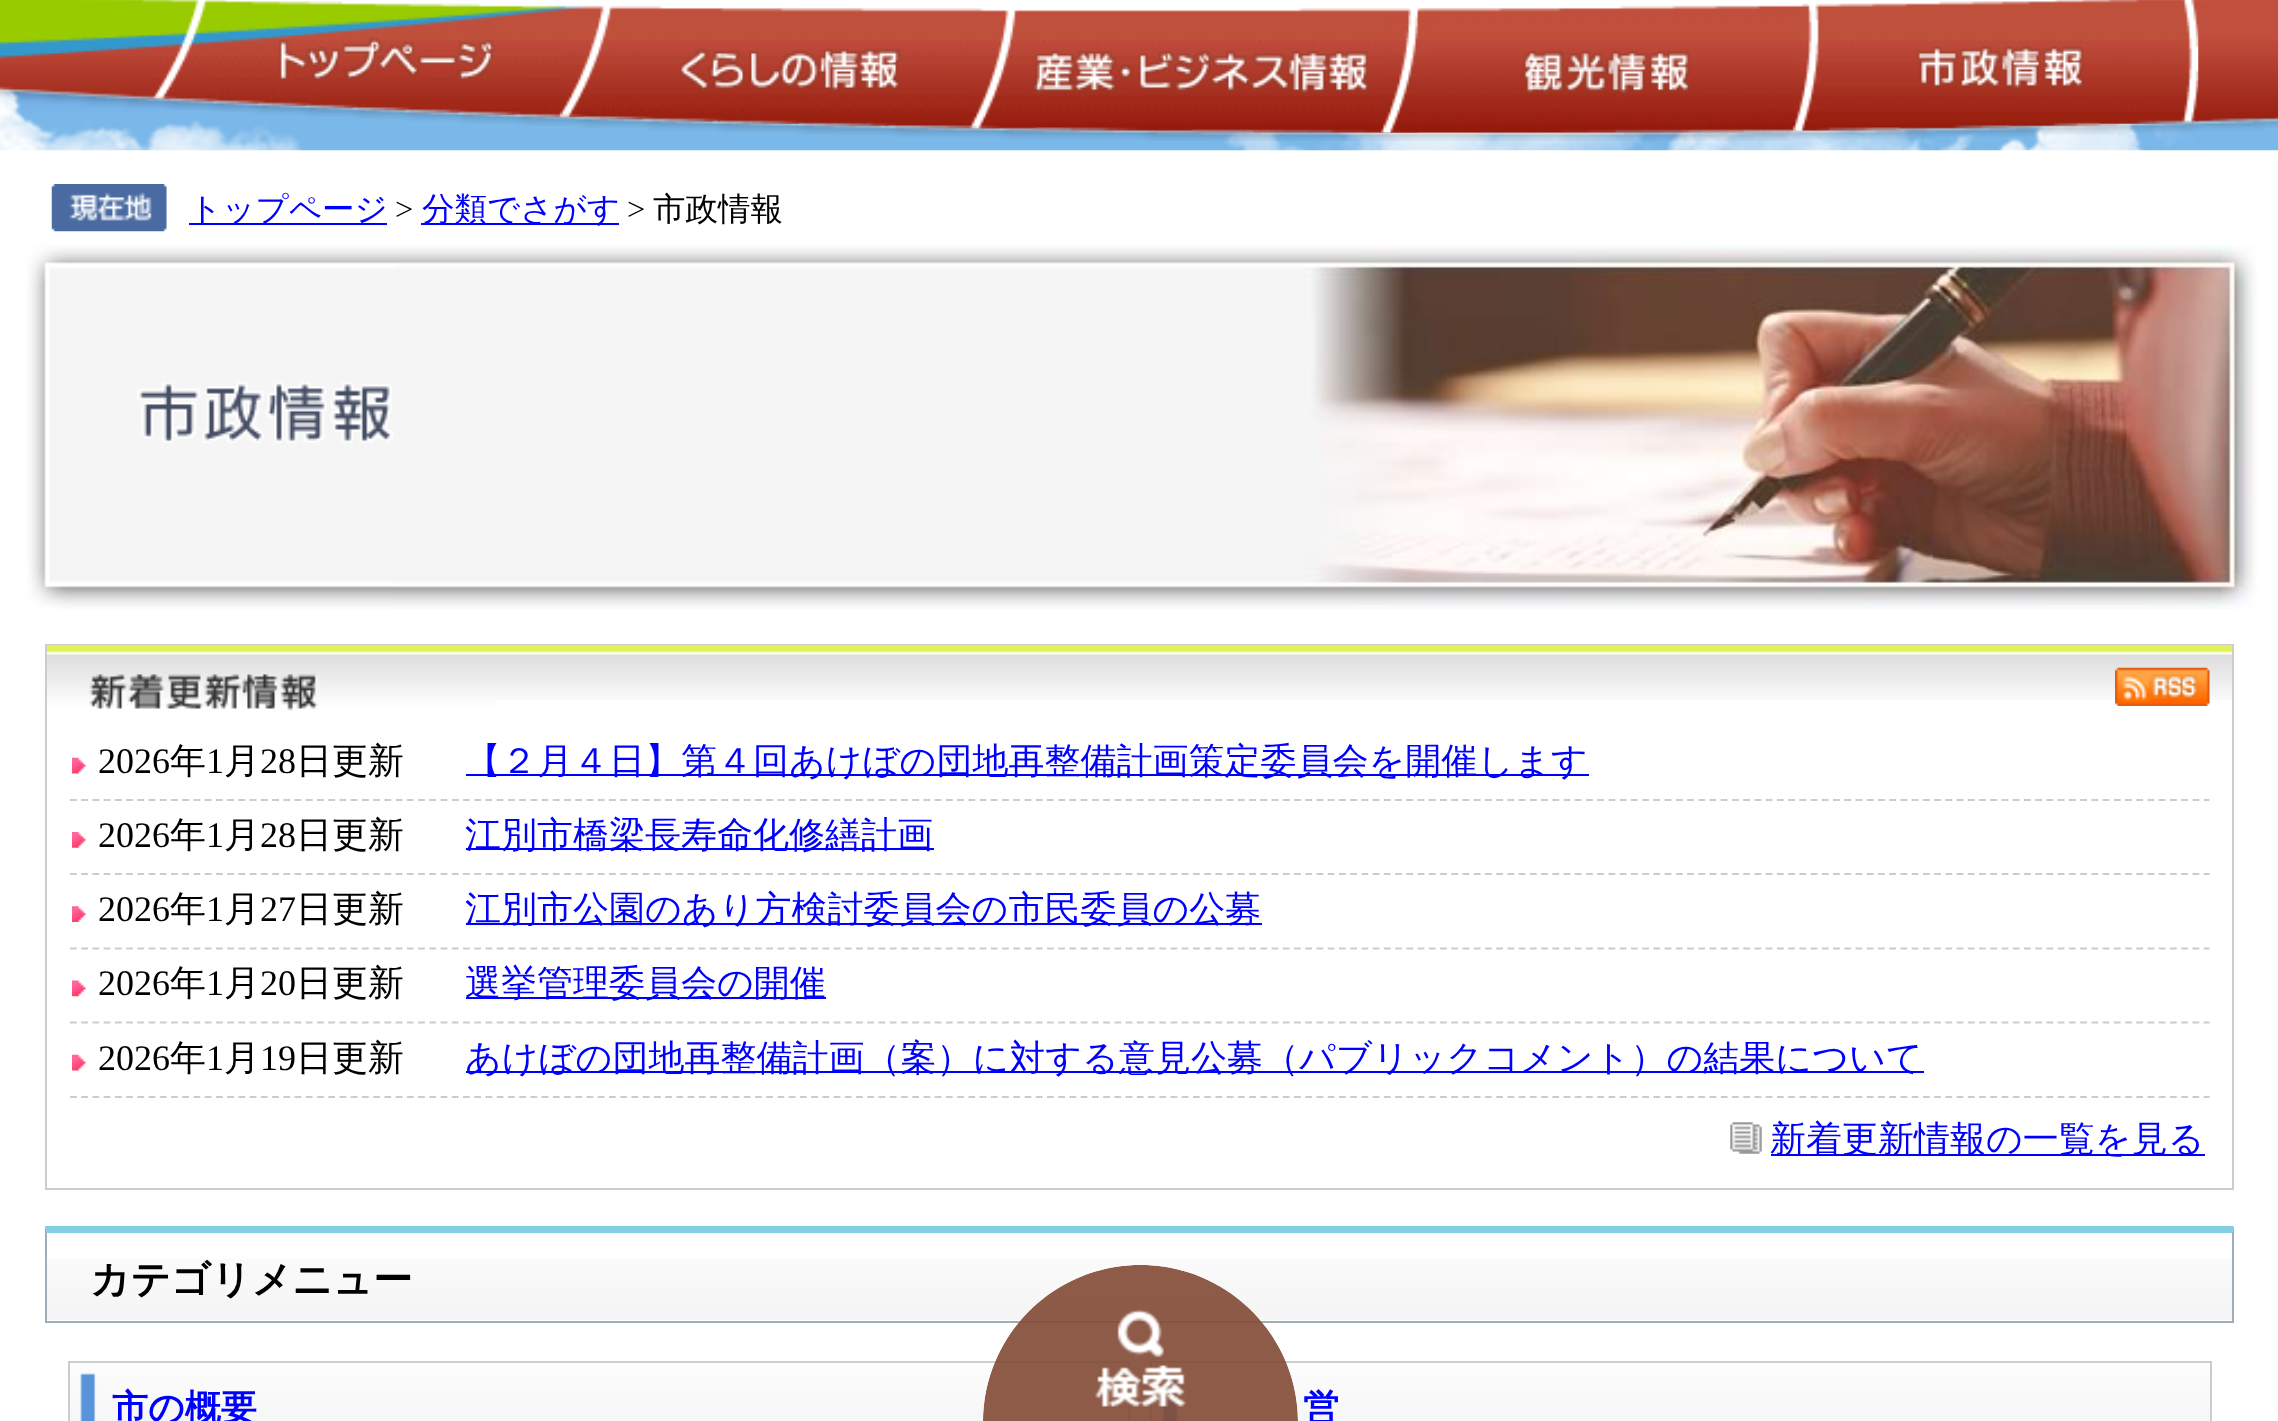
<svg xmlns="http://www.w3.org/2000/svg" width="2278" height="1421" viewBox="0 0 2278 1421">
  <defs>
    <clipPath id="clip1"><path d="M1140 1265H1141C1227.5 1265 1298 1335.5 1298 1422H983C983 1335.5 1053.5 1265 1140 1265Z"/></clipPath>
    <clipPath id="clip2"><rect x="70" y="727" width="2140" height="371"/></clipPath>
  </defs>
  <rect width="100%" height="100%" fill="#ffffff"/>
  <image x="0" y="86" width="2278" height="65" href="img1.png"/>
  <image x="0" y="0" width="2278" height="141" href="img2.png"/>
  <image x="153" y="0" width="450" height="120" href="img3.png"/>
  <image x="560" y="5" width="451" height="126" href="img4.png"/>
  <image x="967" y="8" width="451" height="125" href="img5.png"/>
  <image x="1383" y="3" width="435" height="130" href="img6.png"/>
  <image x="1793" y="0" width="406" height="131" href="img7.png"/>
  <image x="47" y="1259" width="2185" height="61" href="img22.png"/>
  <path d="M45 1226H2234L2232 1233H47Z" fill="#82d0e3"/>
  <path d="M2234 1226V1323L2232 1321V1233Z" fill="#9eadb6"/>
  <rect x="45" y="1321" width="2189" height="2" fill="#9eadb6"/>
  <image x="70" y="1363" width="1058" height="58" href="img23.png"/>
  <rect x="69" y="1362" width="1060" height="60" fill="none" stroke="#cccccc" stroke-width="2"/>
  <image x="1152" y="1363" width="1058" height="58" href="img24.png"/>
  <rect x="1151" y="1362" width="1060" height="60" fill="none" stroke="#cccccc" stroke-width="2"/>
  <g clip-path="url(#clip1)">
    <path d="M1140.5 1265C1227.5 1265 1298 1335.5 1298 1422.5V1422H983V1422.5C983 1335.5 1053.5 1265 1140.5 1265Z" fill="#814934" fill-opacity="0.9"/>
  </g>
  <image x="1117" y="1309" width="47" height="49" href="img8.png"/>
  <image x="1095" y="1365" width="92" height="42" href="img9.png"/>
  <image x="51" y="184" width="116" height="48" href="img10.png"/>
  <rect x="189" y="223" width="198" height="2" fill="#0000ff"/>
  <text x="189" y="220" font-family="WenQuanYi Zen Hei" font-size="32.5" font-weight="500" fill="#0000ff">トップページ</text>
  <text x="395" y="220" font-family="Liberation Serif" font-size="32.5" fill="#000000">&gt;</text>
  <rect x="421" y="223" width="198" height="2" fill="#0000ff"/>
  <text x="422" y="220" font-family="WenQuanYi Zen Hei" font-size="32.5" font-weight="500" fill="#0000ff">分類でさがす</text>
  <text x="627" y="220" font-family="Liberation Serif" font-size="32.5" fill="#000000">&gt;</text>
  <text x="653" y="220" font-family="WenQuanYi Zen Hei" font-size="32.5" font-weight="500" fill="#000000">市政情報</text>
  <image x="27" y="245" width="2230" height="364" href="img11.png"/>
  <image x="27" y="246" width="367" height="363" href="img12.png"/>
  <rect x="46" y="645" width="2187" height="544" fill="none" stroke="#cccccc" stroke-width="2"/>
  <image x="47" y="645" width="2185" height="55" href="img13.png"/>
  <image x="47" y="645" width="451" height="66" href="img14.png"/>
  <image x="2115" y="667" width="95" height="39" href="img15.png"/>
  <image x="72" y="757" width="14" height="17" href="img16.png"/>
  <text x="98" y="773" font-family="Liberation Serif" font-size="36" fill="#000000">2026</text>
  <text x="170" y="773" font-family="WenQuanYi Zen Hei" font-size="36" font-weight="500" fill="#000000">年</text>
  <text x="206" y="773" font-family="Liberation Serif" font-size="36" fill="#000000">1</text>
  <text x="224" y="773" font-family="WenQuanYi Zen Hei" font-size="36" font-weight="500" fill="#000000">月</text>
  <text x="260" y="773" font-family="Liberation Serif" font-size="36" fill="#000000">28</text>
  <text x="296" y="773" font-family="WenQuanYi Zen Hei" font-size="36" font-weight="500" fill="#000000">日更新</text>
  <path d="M70 800H2209.5" fill="none" stroke="#cccccc" stroke-width="2.2" stroke-dasharray="6.75 4.48"/>
  <rect x="466" y="774" width="1123" height="2" fill="#0000ff"/>
  <text x="465" y="773" font-family="WenQuanYi Zen Hei" font-size="36" font-weight="500" fill="#0000ff">【２月４日】第４回あけぼの団地再整備計画策定委員会を開催します</text>
  <image x="72" y="832" width="14" height="16" href="img17.png"/>
  <text x="98" y="847" font-family="Liberation Serif" font-size="36" fill="#000000">2026</text>
  <text x="170" y="847" font-family="WenQuanYi Zen Hei" font-size="36" font-weight="500" fill="#000000">年</text>
  <text x="206" y="847" font-family="Liberation Serif" font-size="36" fill="#000000">1</text>
  <text x="224" y="847" font-family="WenQuanYi Zen Hei" font-size="36" font-weight="500" fill="#000000">月</text>
  <text x="260" y="847" font-family="Liberation Serif" font-size="36" fill="#000000">28</text>
  <text x="296" y="847" font-family="WenQuanYi Zen Hei" font-size="36" font-weight="500" fill="#000000">日更新</text>
  <path d="M70 874H2209.5" fill="none" stroke="#cccccc" stroke-width="2.2" stroke-dasharray="6.75 4.48"/>
  <rect x="466" y="848" width="468" height="2" fill="#0000ff"/>
  <text x="465" y="847" font-family="WenQuanYi Zen Hei" font-size="36" font-weight="500" fill="#0000ff">江別市橋梁長寿命化修繕計画</text>
  <image x="72" y="906" width="14" height="16" href="img18.png"/>
  <text x="98" y="921" font-family="Liberation Serif" font-size="36" fill="#000000">2026</text>
  <text x="170" y="921" font-family="WenQuanYi Zen Hei" font-size="36" font-weight="500" fill="#000000">年</text>
  <text x="206" y="921" font-family="Liberation Serif" font-size="36" fill="#000000">1</text>
  <text x="224" y="921" font-family="WenQuanYi Zen Hei" font-size="36" font-weight="500" fill="#000000">月</text>
  <text x="260" y="921" font-family="Liberation Serif" font-size="36" fill="#000000">27</text>
  <text x="296" y="921" font-family="WenQuanYi Zen Hei" font-size="36" font-weight="500" fill="#000000">日更新</text>
  <path d="M70 948.5H2209.5" fill="none" stroke="#cccccc" stroke-width="2.2" stroke-dasharray="6.75 4.48"/>
  <rect x="466" y="923" width="796" height="2" fill="#0000ff"/>
  <text x="465" y="921" font-family="WenQuanYi Zen Hei" font-size="36" font-weight="500" fill="#0000ff">江別市公園のあり方検討委員会の市民委員の公募</text>
  <image x="72" y="980" width="14" height="17" href="img19.png"/>
  <text x="98" y="995" font-family="Liberation Serif" font-size="36" fill="#000000">2026</text>
  <text x="170" y="995" font-family="WenQuanYi Zen Hei" font-size="36" font-weight="500" fill="#000000">年</text>
  <text x="206" y="995" font-family="Liberation Serif" font-size="36" fill="#000000">1</text>
  <text x="224" y="995" font-family="WenQuanYi Zen Hei" font-size="36" font-weight="500" fill="#000000">月</text>
  <text x="260" y="995" font-family="Liberation Serif" font-size="36" fill="#000000">20</text>
  <text x="296" y="995" font-family="WenQuanYi Zen Hei" font-size="36" font-weight="500" fill="#000000">日更新</text>
  <path d="M70 1022.5H2209.5" fill="none" stroke="#cccccc" stroke-width="2.2" stroke-dasharray="6.75 4.48"/>
  <rect x="466" y="997" width="360" height="2" fill="#0000ff"/>
  <text x="465" y="995" font-family="WenQuanYi Zen Hei" font-size="36" font-weight="500" fill="#0000ff">選挙管理委員会の開催</text>
  <image x="72" y="1054" width="14" height="17" href="img20.png"/>
  <text x="98" y="1070" font-family="Liberation Serif" font-size="36" fill="#000000">2026</text>
  <text x="170" y="1070" font-family="WenQuanYi Zen Hei" font-size="36" font-weight="500" fill="#000000">年</text>
  <text x="206" y="1070" font-family="Liberation Serif" font-size="36" fill="#000000">1</text>
  <text x="224" y="1070" font-family="WenQuanYi Zen Hei" font-size="36" font-weight="500" fill="#000000">月</text>
  <text x="260" y="1070" font-family="Liberation Serif" font-size="36" fill="#000000">19</text>
  <text x="296" y="1070" font-family="WenQuanYi Zen Hei" font-size="36" font-weight="500" fill="#000000">日更新</text>
  <g clip-path="url(#clip2)">
    <path d="M70 1097H2209.5" fill="none" stroke="#cccccc" stroke-width="2.2" stroke-dasharray="6.75 4.48"/>
  </g>
  <rect x="466" y="1071" width="1458" height="2" fill="#0000ff"/>
  <text x="465" y="1070" font-family="WenQuanYi Zen Hei" font-size="36" font-weight="500" fill="#0000ff">あけぼの団地再整備計画（案）に対する意見公募（パブリックコメント）の結果について</text>
  <image x="1730" y="1122" width="32" height="32" href="img21.png"/>
  <rect x="1771" y="1154" width="434" height="2" fill="#0000ff"/>
  <text x="1770" y="1151" font-family="WenQuanYi Zen Hei" font-size="36" font-weight="500" fill="#0000ff">新着更新情報の一覧を見る</text>
  <path d="M45 1323V1226L47 1233V1321Z" fill="#9eadb6"/>
  <text x="90" y="1293" font-family="WenQuanYi Zen Hei" font-size="39.5" font-weight="bold" fill="#000000">カテゴリメニュー</text>
  <text x="112" y="1420" font-family="WenQuanYi Zen Hei" font-size="36" font-weight="bold" fill="#0000ff">市の概要</text>
  <text x="1303" y="1420" font-family="WenQuanYi Zen Hei" font-size="36" font-weight="bold" fill="#0000ff">営</text>
</svg>
